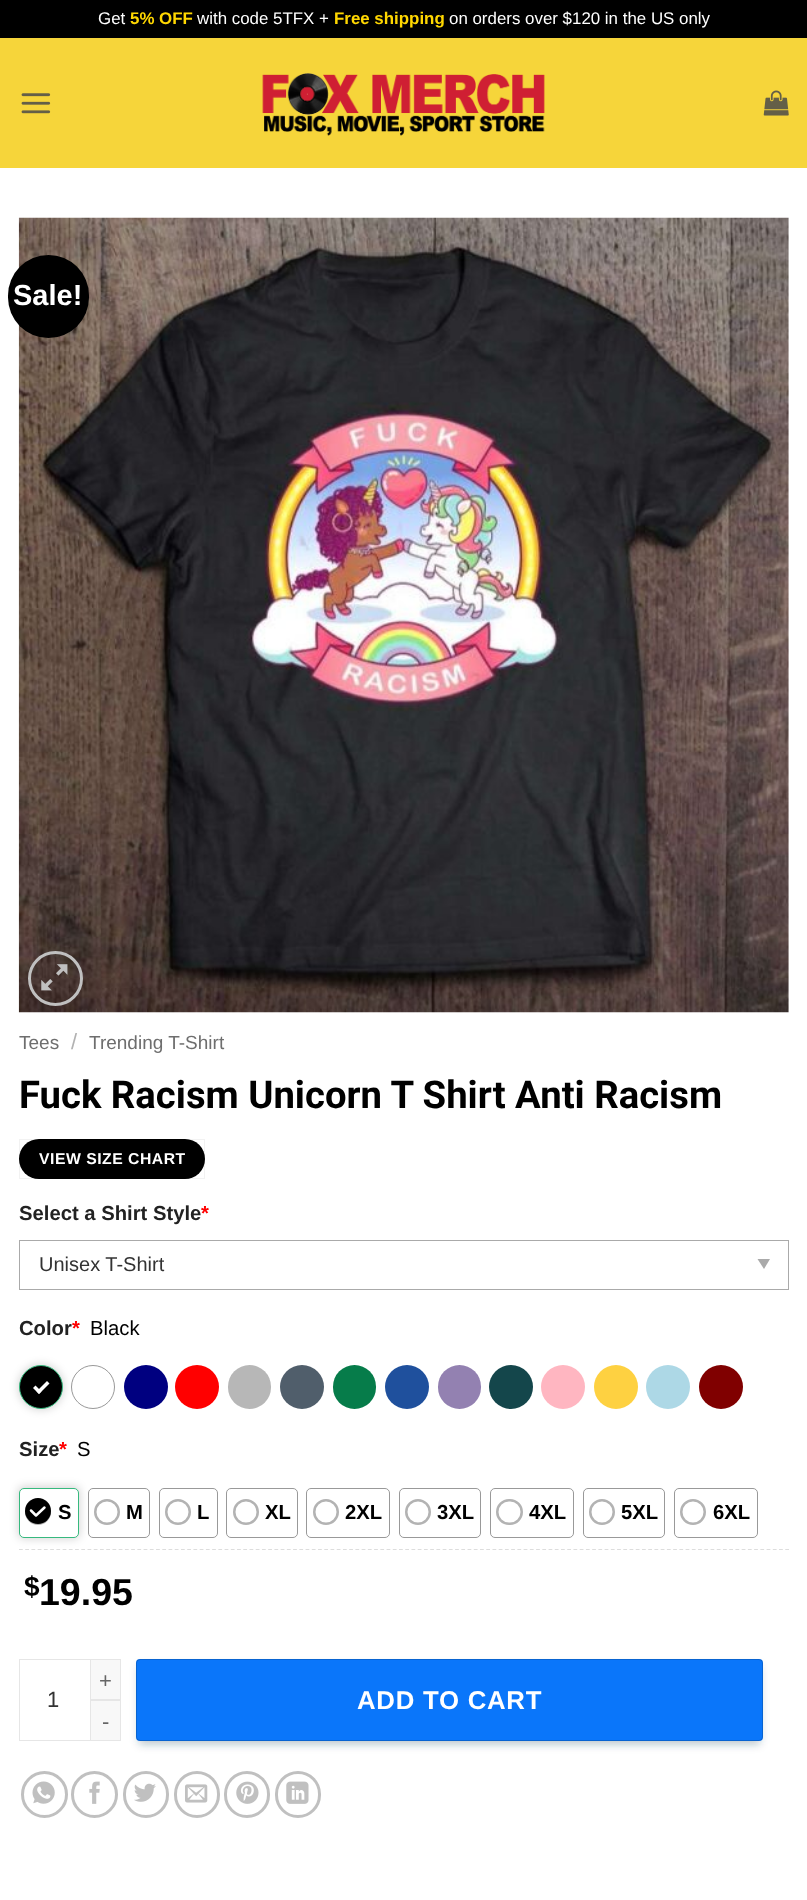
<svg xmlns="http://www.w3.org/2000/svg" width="807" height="1900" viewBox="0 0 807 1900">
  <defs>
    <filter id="blur1" x="-50%" y="-200%" width="200%" height="500%"><feGaussianBlur stdDeviation="4.5"/></filter>
    <filter id="blur2" x="-50%" y="-200%" width="200%" height="500%"><feGaussianBlur stdDeviation="4"/></filter>
  </defs>
  <rect width="100%" height="100%" fill="#ffffff"/>
  <rect x="0" y="0" width="807" height="38" fill="#000000"/>
  <text x="98" y="24" font-family="Liberation Sans" font-size="16.9" fill="#ffffff">Get</text>
  <text x="130" y="24" font-family="Liberation Sans" font-size="16.9" font-weight="bold" fill="#ffd700">5% OFF</text>
  <text x="197" y="24" font-family="Liberation Sans" font-size="16.9" fill="#ffffff">with code 5TFX +</text>
  <text x="334" y="24" font-family="Liberation Sans" font-size="16.9" font-weight="bold" fill="#ffd700">Free shipping</text>
  <text x="449" y="24" font-family="Liberation Sans" font-size="16.9" fill="#ffffff">on orders over $120 in the US only</text>
  <rect x="0" y="38" width="807" height="130" fill="#f6d53a"/>
  <image x="21" y="93" width="30" height="21" href="img1.png"/>
  <image x="262" y="73" width="283" height="63" href="img2.png"/>
  <image x="763" y="90" width="26" height="26" href="img3.png"/>
  <image x="18" y="217" width="771" height="796" href="img4.png"/>
  <rect x="8" y="255" width="81" height="83" rx="40.5" fill="#000000"/>
  <text x="13" y="305" font-family="Liberation Sans" font-size="29" font-weight="bold" fill="#ffffff">Sale!</text>
  <circle cx="55.5" cy="978.5" r="26" fill="none" stroke="#c0c0c0" stroke-width="3"/>
  <image x="41" y="964" width="27" height="27" href="img5.png"/>
  <text x="19" y="1049" font-family="Liberation Sans" font-size="19" fill="#6e6e6e">Tees</text>
  <text x="71" y="1049" font-family="Liberation Sans" font-size="22" fill="#b2b2b2">/</text>
  <text x="89" y="1049" font-family="Liberation Sans" font-size="19" fill="#6e6e6e">Trending T-Shirt</text>
  <text x="19" y="1108" font-family="Roboto" font-size="38.25" font-weight="bold" fill="#000000">Fuck Racism Unicorn T Shirt Anti Racism</text>
  <rect x="19" y="1139" width="186" height="40" rx="20" fill="#000000"/>
  <rect x="19.5" y="1139.5" width="185" height="39" fill="none" stroke="#000000" stroke-opacity="0.05"/>
  <text x="39" y="1164" font-family="Liberation Sans" font-size="15.75" font-weight="bold" letter-spacing="0.5" fill="#ffffff">VIEW SIZE CHART</text>
  <text x="19" y="1220" font-family="Liberation Sans" font-size="20.25" font-weight="bold" fill="#222222">Select a Shirt Style</text>
  <text x="201" y="1220" font-family="Liberation Sans" font-size="20.25" font-weight="bold" fill="#ff0000">*</text>
  <rect x="19.5" y="1240.5" width="769" height="49" fill="none" stroke="#aaaaaa"/>
  <text x="39" y="1271" font-family="Liberation Sans" font-size="20" fill="#333333">Unisex T-Shirt</text>
  <path d="M757.5 1259H770L764 1269Z" fill="#aaaaaa"/>
  <text x="19" y="1335" font-family="Liberation Sans" font-size="20.25" font-weight="bold" fill="#222222">Color</text>
  <text x="72" y="1335" font-family="Liberation Sans" font-size="20.25" font-weight="bold" fill="#ff0000">*</text>
  <text x="90" y="1335" font-family="Liberation Sans" font-size="20.25" fill="#000000">Black</text>
  <rect x="18" y="1364" width="46" height="46" rx="23" fill="#0e0e0e" fill-opacity="0.16" filter="url(#blur1)"/>
  <circle cx="41" cy="1387" r="21.5" fill="#000000" stroke="#36b97e"/>
  <path d="M47 1381L49.5 1383.5L39 1394L36.5 1391.5Z" fill="#ffffff"/>
  <path d="M35.5 1385.5L41.5 1391.5L39 1394L33 1388Z" fill="#ffffff"/>
  <circle cx="93" cy="1387" r="21.5" fill="none" stroke="#999999"/>
  <circle cx="146" cy="1387" r="22" fill="#000080"/>
  <circle cx="197" cy="1387" r="22" fill="#ff0000"/>
  <rect x="228" y="1365" width="43" height="44" rx="21.5" fill="#b7b7b7"/>
  <circle cx="302" cy="1387" r="22" fill="#505e6b"/>
  <rect x="333" y="1365" width="43" height="44" rx="21.5" fill="#067c4a"/>
  <circle cx="407" cy="1387" r="22" fill="#1f509d"/>
  <rect x="438" y="1365" width="43" height="44" rx="21.5" fill="#9381b1"/>
  <circle cx="511" cy="1387" r="22" fill="#14464b"/>
  <circle cx="563" cy="1387" r="22" fill="#ffb6c1"/>
  <circle cx="616" cy="1387" r="22" fill="#fed141"/>
  <circle cx="668" cy="1387" r="22" fill="#add8e6"/>
  <circle cx="721" cy="1387" r="22" fill="#800000"/>
  <text x="19" y="1456" font-family="Liberation Sans" font-size="20.25" font-weight="bold" fill="#222222">Size</text>
  <text x="59" y="1456" font-family="Liberation Sans" font-size="20.25" font-weight="bold" fill="#ff0000">*</text>
  <text x="77" y="1456" font-family="Liberation Sans" font-size="20.25" fill="#000000">S</text>
  <path d="M19 1549.5H789" fill="none" stroke="#dddddd" stroke-width="1.2" stroke-dasharray="3.75 2.48"/>
  <rect x="18" y="1486" width="62" height="53" rx="6" fill="#0e0e0e" fill-opacity="0.16" filter="url(#blur1)"/>
  <rect x="19.5" y="1488.5" width="59" height="49" rx="4.5" fill="#ffffff" stroke="#36b97e"/>
  <circle cx="38" cy="1512" r="11.75" fill="none" stroke="#b3b3b3" stroke-width="2.5"/>
  <circle cx="38" cy="1511" r="13" fill="#000000"/>
  <path d="M31 1510.5L36 1515.5L44.5 1507.5" fill="none" stroke="#ffffff" stroke-width="2.5" stroke-linecap="round" stroke-linejoin="round"/>
  <text x="58" y="1519" font-family="Liberation Sans" font-size="20.25" font-weight="bold" fill="#000000">S</text>
  <rect x="88.5" y="1488.5" width="61" height="49" rx="4.5" fill="none" stroke="#999999"/>
  <circle cx="107" cy="1512" r="11.75" fill="none" stroke="#b2b2b2" stroke-width="2.5"/>
  <text x="126" y="1519" font-family="Liberation Sans" font-size="20.25" font-weight="bold" fill="#000000">M</text>
  <rect x="159.5" y="1488.5" width="58" height="49" rx="4.5" fill="none" stroke="#999999"/>
  <circle cx="178" cy="1512" r="11.75" fill="none" stroke="#b3b3b3" stroke-width="2.5"/>
  <text x="197" y="1519" font-family="Liberation Sans" font-size="20.25" font-weight="bold" fill="#000000">L</text>
  <rect x="226.5" y="1488.5" width="71" height="49" rx="4.5" fill="none" stroke="#999999"/>
  <circle cx="246" cy="1512" r="11.75" fill="none" stroke="#b3b3b3" stroke-width="2.5"/>
  <text x="265" y="1519" font-family="Liberation Sans" font-size="20.25" font-weight="bold" fill="#000000">XL</text>
  <rect x="306.5" y="1488.5" width="83" height="49" rx="4.5" fill="none" stroke="#999999"/>
  <circle cx="326" cy="1512" r="11.75" fill="none" stroke="#b3b3b3" stroke-width="2.5"/>
  <text x="345" y="1519" font-family="Liberation Sans" font-size="20.25" font-weight="bold" fill="#000000">2XL</text>
  <rect x="399.5" y="1488.5" width="81" height="49" rx="4.5" fill="none" stroke="#999999"/>
  <circle cx="418" cy="1512" r="11.75" fill="none" stroke="#b3b3b3" stroke-width="2.5"/>
  <text x="437" y="1519" font-family="Liberation Sans" font-size="20.25" font-weight="bold" fill="#000000">3XL</text>
  <rect x="490.5" y="1488.5" width="83" height="49" rx="4.5" fill="none" stroke="#999999"/>
  <rect x="497.25" y="1500.25" width="24.5" height="23.5" rx="11.75" fill="none" stroke="#b3b3b3" stroke-width="2.5"/>
  <text x="529" y="1519" font-family="Liberation Sans" font-size="20.25" font-weight="bold" fill="#000000">4XL</text>
  <rect x="583.5" y="1488.5" width="81" height="49" rx="4.5" fill="none" stroke="#999999"/>
  <circle cx="602" cy="1512" r="11.75" fill="none" stroke="#b3b3b3" stroke-width="2.5"/>
  <text x="621" y="1519" font-family="Liberation Sans" font-size="20.25" font-weight="bold" fill="#000000">5XL</text>
  <rect x="674.5" y="1488.5" width="83" height="49" rx="4.5" fill="none" stroke="#999999"/>
  <circle cx="693" cy="1512" r="11.75" fill="none" stroke="#b3b3b3" stroke-width="2.5"/>
  <text x="713" y="1519" font-family="Liberation Sans" font-size="20.25" font-weight="bold" fill="#000000">6XL</text>
  <text x="24" y="1596" font-family="Liberation Sans" font-size="28" font-weight="bold" fill="#000000">$</text>
  <text x="39" y="1605" font-family="Liberation Sans" font-size="37.5" font-weight="bold" fill="#000000">19.95</text>
  <rect x="19.5" y="1659.5" width="101" height="81" fill="none" stroke="#e6e6e6"/>
  <rect x="90.5" y="1659.5" width="30" height="40" fill="#f8f8f8" stroke="#e6e6e6"/>
  <text x="99" y="1688" font-family="Liberation Sans" font-size="22" letter-spacing="1" fill="#666666">+</text>
  <text x="47" y="1707" font-family="Liberation Sans" font-size="22" fill="#333333">1</text>
  <rect x="90.5" y="1700.5" width="30" height="40" fill="#f8f8f8" stroke="#e6e6e6"/>
  <text x="102" y="1729" font-family="Liberation Sans" font-size="22" letter-spacing="1" fill="#666666">-</text>
  <rect x="139" y="1666" width="621" height="78" rx="1" fill="#23435c" fill-opacity="0.32" filter="url(#blur2)"/>
  <rect x="136" y="1659" width="627" height="82" rx="4" fill="#0a76fa"/>
  <rect x="136.5" y="1659.5" width="626" height="81" rx="3.5" fill="none" stroke="#000000" stroke-opacity="0.16"/>
  <text x="357" y="1709" font-family="Liberation Sans" font-size="25.75" font-weight="bold" letter-spacing="0.75" fill="#ffffff">ADD TO CART</text>
  <circle cx="44.5" cy="1794.5" r="22" fill="none" stroke="#c0c0c0" stroke-width="3"/>
  <image x="32" y="1781" width="23" height="23" href="img6.png"/>
  <circle cx="94.5" cy="1794.5" r="22" fill="none" stroke="#c0c0c0" stroke-width="3"/>
  <image x="89" y="1781" width="11" height="23" href="img7.png"/>
  <rect x="124.5" y="1772.5" width="43" height="44" rx="21.5" fill="none" stroke="#c0c0c0" stroke-width="3"/>
  <image x="134" y="1783" width="22" height="19" href="img8.png"/>
  <rect x="175.5" y="1772.5" width="43" height="44" rx="21.5" fill="none" stroke="#c0c0c0" stroke-width="3"/>
  <image x="185" y="1784" width="23" height="19" href="img9.png"/>
  <rect x="225.5" y="1772.5" width="43" height="44" rx="21.5" fill="none" stroke="#c0c0c0" stroke-width="3"/>
  <image x="236" y="1781" width="23" height="23" href="img10.png"/>
  <rect x="276.5" y="1772.5" width="43" height="44" rx="21.5" fill="none" stroke="#c0c0c0" stroke-width="3"/>
  <image x="286" y="1781" width="23" height="23" href="img11.png"/>
</svg>
